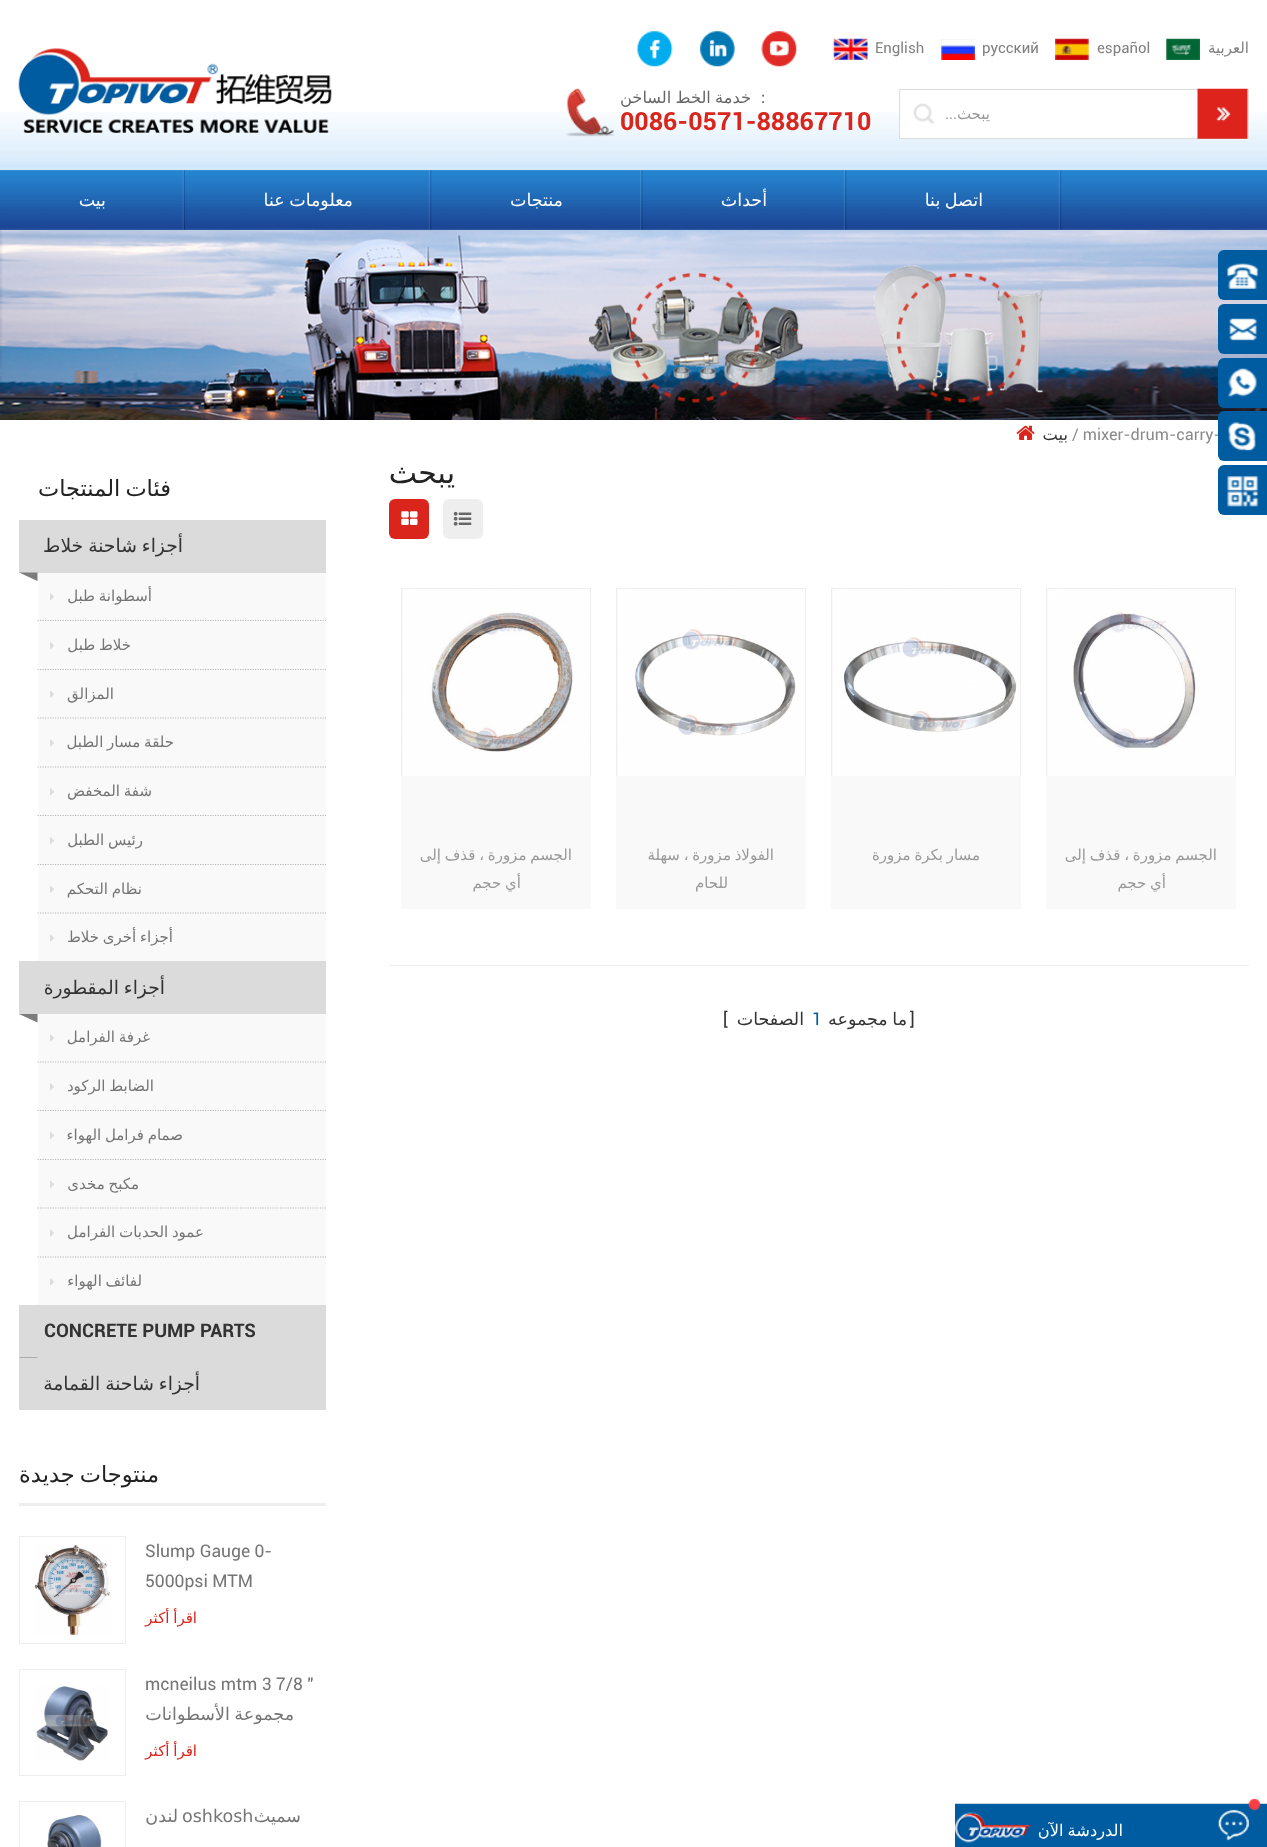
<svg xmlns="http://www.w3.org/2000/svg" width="1267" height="1847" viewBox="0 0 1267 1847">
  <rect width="100%" height="100%" fill="#ffffff"/>
  <image x="0" y="112" width="1267" height="58" href="img1.png"/>
  <text x="1249" y="53" font-family="DejaVu Sans" font-size="15" direction="rtl" fill="#808080">العربية</text>
  <image x="1166" y="38" width="34" height="22" href="img2.png"/>
  <text x="1097" y="53" font-family="Roboto" font-size="15" fill="#808080">español</text>
  <image x="1055" y="38" width="34" height="22" href="img3.png"/>
  <text x="982" y="53" font-family="Roboto" font-size="15" fill="#808080">русский</text>
  <image x="941" y="39" width="34" height="21" href="img4.png"/>
  <text x="875" y="53" font-family="Roboto" font-size="15" fill="#808080">English</text>
  <image x="833" y="38" width="35" height="22" href="img5.png"/>
  <image x="761" y="31" width="36" height="36" href="img6.png"/>
  <image x="700" y="31" width="35" height="36" href="img7.png"/>
  <image x="637" y="31" width="36" height="36" href="img8.png"/>
  <rect x="899.5" y="89.5" width="349" height="49" fill="none" stroke="#dddddd"/>
  <rect x="900" y="112" width="348" height="26" fill="#ffffff"/>
  <image x="1197" y="88" width="51" height="51" href="img9.png"/>
  <image x="913" y="103" width="21" height="21" href="img10.png"/>
  <text x="990" y="119" font-family="DejaVu Sans" font-size="15" direction="rtl" fill="#999999">يبحث</text>
  <text x="957" y="119" font-family="Roboto" font-size="15" direction="rtl" fill="#999999">...</text>
  <image x="566" y="88" width="49" height="49" href="img11.png"/>
  <text x="755" y="103" font-family="WenQuanYi Zen Hei" font-size="16.25" font-weight="500" fill="#666666">：</text>
  <text x="751" y="103" word-spacing="-1" font-family="DejaVu Sans" font-size="16.25" direction="rtl" fill="#666666">خدمة الخط الساخن</text>
  <text x="620" y="130" font-family="Roboto" font-size="25" font-weight="bold" fill="#da251c">0086-0571-88867710</text>
  <image x="18" y="48" width="314" height="85" href="img12.png"/>
  <image x="0" y="170" width="1267" height="60" href="img13.png"/>
  <image x="1058" y="170" width="4" height="60" href="img14.png"/>
  <text x="983" y="206" word-spacing="-1" font-family="DejaVu Sans" font-size="17.5" direction="rtl" fill="#ffffff">اتصل بنا</text>
  <image x="843" y="170" width="4" height="60" href="img15.png"/>
  <text x="767" y="206" font-family="DejaVu Sans" font-size="17.5" direction="rtl" fill="#ffffff">أحداث</text>
  <image x="640" y="170" width="3" height="60" href="img16.png"/>
  <text x="563" y="206" font-family="DejaVu Sans" font-size="17.5" direction="rtl" fill="#ffffff">منتجات</text>
  <image x="428" y="170" width="4" height="60" href="img14.png"/>
  <text x="353" y="206" word-spacing="-1" font-family="DejaVu Sans" font-size="17.5" direction="rtl" fill="#ffffff">معلومات عنا</text>
  <image x="182" y="170" width="3" height="60" href="img17.png"/>
  <text x="106" y="206" font-family="DejaVu Sans" font-size="17.5" direction="rtl" fill="#ffffff">بيت</text>
  <image x="0" y="230" width="1267" height="190" href="img18.png"/>
  <rect x="1218" y="250" width="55" height="50" rx="6" fill="#005ca1"/>
  <image x="1226" y="263" width="33" height="26" href="img19.png"/>
  <rect x="1218" y="304" width="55" height="50" rx="6" fill="#005ca1"/>
  <image x="1229" y="318" width="28" height="23" href="img20.png"/>
  <rect x="1218" y="358" width="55" height="50" rx="6" fill="#005ca1"/>
  <image x="1228" y="368" width="29" height="29" href="img21.png"/>
  <text x="1072" y="440" font-family="Roboto" font-size="16.25" fill="#8a8a8a">/ mixer-drum-carry-</text>
  <rect x="1218" y="411" width="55" height="50" rx="6" fill="#005ca1"/>
  <image x="1228" y="422" width="28" height="29" href="img22.png"/>
  <rect x="1218" y="465" width="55" height="50" rx="6" fill="#005ca1"/>
  <image x="1227" y="476" width="32" height="31" href="img23.png"/>
  <text x="1068" y="440" font-family="DejaVu Sans" font-size="16.25" direction="rtl" fill="#333333">بيت</text>
  <image x="1016" y="425" width="19" height="15" href="img24.png"/>
  <text x="455" y="483" font-family="DejaVu Sans" font-size="30" direction="rtl" fill="#222222">يبحث</text>
  <rect x="443" y="499" width="40" height="40" rx="6" fill="#eeeeee"/>
  <image x="453" y="511" width="19" height="15" href="img25.png"/>
  <rect x="389" y="499" width="40" height="40" rx="6" fill="#da251c"/>
  <image x="401" y="511" width="17" height="14" href="img26.png"/>
  <rect x="1046" y="589" width="190" height="320" fill="#f9f9f9"/>
  <rect x="1046" y="588" width="190" height="1" fill="#eeeeee"/>
  <rect x="1235" y="588" width="1" height="188" fill="#eeeeee"/>
  <rect x="1046" y="588" width="1" height="188" fill="#eeeeee"/>
  <image x="1048" y="589" width="187" height="187" href="img27.png"/>
  <text x="1217" y="860" word-spacing="-1" font-family="DejaVu Sans" font-size="15" direction="rtl" fill="#999999">الجسم مزورة ، قذف إلى</text>
  <text x="1166" y="888" word-spacing="-1" font-family="DejaVu Sans" font-size="15" direction="rtl" fill="#999999">أي حجم</text>
  <rect x="831" y="589" width="190" height="320" fill="#f9f9f9"/>
  <rect x="831" y="588" width="190" height="1" fill="#eeeeee"/>
  <rect x="1020" y="588" width="1" height="188" fill="#eeeeee"/>
  <rect x="831" y="588" width="1" height="188" fill="#eeeeee"/>
  <image x="833" y="589" width="187" height="187" href="img28.png"/>
  <text x="980" y="860" word-spacing="-1" font-family="DejaVu Sans" font-size="15" direction="rtl" fill="#999999">مسار بكرة مزورة</text>
  <rect x="616" y="589" width="190" height="320" fill="#f9f9f9"/>
  <rect x="616" y="588" width="190" height="1" fill="#eeeeee"/>
  <rect x="805" y="588" width="1" height="188" fill="#eeeeee"/>
  <rect x="616" y="588" width="1" height="188" fill="#eeeeee"/>
  <image x="618" y="589" width="187" height="187" href="img29.png"/>
  <text x="774" y="860" word-spacing="-1" font-family="DejaVu Sans" font-size="15" direction="rtl" fill="#999999">الفولاذ مزورة ، سهلة</text>
  <text x="728" y="888" font-family="DejaVu Sans" font-size="15" direction="rtl" fill="#999999">للحام</text>
  <rect x="401" y="589" width="190" height="320" fill="#f9f9f9"/>
  <rect x="401" y="588" width="190" height="1" fill="#eeeeee"/>
  <rect x="590" y="588" width="1" height="188" fill="#eeeeee"/>
  <rect x="401" y="588" width="1" height="188" fill="#eeeeee"/>
  <image x="403" y="589" width="187" height="187" href="img30.png"/>
  <text x="572" y="860" word-spacing="-1" font-family="DejaVu Sans" font-size="15" direction="rtl" fill="#999999">الجسم مزورة ، قذف إلى</text>
  <text x="521" y="888" word-spacing="-1" font-family="DejaVu Sans" font-size="15" direction="rtl" fill="#999999">أي حجم</text>
  <rect x="389" y="965" width="860" height="1" fill="#eeeeee"/>
  <text x="910" y="1025" font-family="Roboto" font-size="17.5" fill="#333333">]</text>
  <text x="907" y="1025" word-spacing="-1" font-family="DejaVu Sans" font-size="17.5" direction="rtl" fill="#333333">ما مجموعه</text>
  <text x="812" y="1025" font-family="Roboto" font-size="17.5" fill="#005ca1">1</text>
  <text x="804" y="1025" font-family="DejaVu Sans" font-size="17.5" direction="rtl" fill="#333333">الصفحات</text>
  <text x="723" y="1025" font-family="Roboto" font-size="17.5" fill="#333333">[</text>
  <text x="171" y="496" word-spacing="-2" font-family="DejaVu Sans" font-size="22.5" direction="rtl" fill="#222222">فئات المنتجات</text>
  <rect x="19" y="520" width="307" height="53" fill="#dbdbdb"/>
  <text x="183" y="552" word-spacing="-1" font-family="DejaVu Sans" font-size="18.75" direction="rtl" fill="#333333">أجزاء شاحنة خلاط</text>
  <path d="M19 572.5H37.5V581Z" fill="#7c7c7c"/>
  <rect x="38" y="573" width="288" height="388" fill="#f9f9f9"/>
  <path d="M37.5 620.5H326" fill="none" stroke="#bbbbbb" stroke-width="1.2" stroke-dasharray="1.25 1.25"/>
  <text x="152" y="601" word-spacing="-1" font-family="DejaVu Sans" font-size="15" direction="rtl" fill="#757575">أسطوانة طبل</text>
  <image x="50" y="593" width="4" height="8" href="img31.png"/>
  <path d="M37.5 669.5H326" fill="none" stroke="#bbbbbb" stroke-width="1.2" stroke-dasharray="1.25 1.25"/>
  <text x="131" y="650" word-spacing="-1" font-family="DejaVu Sans" font-size="15" direction="rtl" fill="#757575">خلاط طبل</text>
  <image x="50" y="642" width="4" height="7" href="img32.png"/>
  <path d="M37.5 718H326" fill="none" stroke="#bbbbbb" stroke-width="1.2" stroke-dasharray="1.25 1.25"/>
  <text x="114" y="699" font-family="DejaVu Sans" font-size="15" direction="rtl" fill="#757575">المزالق</text>
  <image x="50" y="690" width="4" height="8" href="img33.png"/>
  <path d="M37.5 767H326" fill="none" stroke="#bbbbbb" stroke-width="1.2" stroke-dasharray="1.25 1.25"/>
  <text x="174" y="747" word-spacing="-1" font-family="DejaVu Sans" font-size="15" direction="rtl" fill="#757575">حلقة مسار الطبل</text>
  <image x="50" y="739" width="4" height="8" href="img34.png"/>
  <path d="M37.5 815.5H326" fill="none" stroke="#bbbbbb" stroke-width="1.2" stroke-dasharray="1.25 1.25"/>
  <text x="152" y="796" word-spacing="-1" font-family="DejaVu Sans" font-size="15" direction="rtl" fill="#757575">شفة المخفض</text>
  <image x="50" y="788" width="4" height="8" href="img31.png"/>
  <path d="M37.5 864.5H326" fill="none" stroke="#bbbbbb" stroke-width="1.2" stroke-dasharray="1.25 1.25"/>
  <text x="143" y="845" word-spacing="-1" font-family="DejaVu Sans" font-size="15" direction="rtl" fill="#757575">رئيس الطبل</text>
  <image x="50" y="837" width="4" height="7" href="img32.png"/>
  <path d="M37.5 913H326" fill="none" stroke="#bbbbbb" stroke-width="1.2" stroke-dasharray="1.25 1.25"/>
  <text x="142" y="894" word-spacing="-1" font-family="DejaVu Sans" font-size="15" direction="rtl" fill="#757575">نظام التحكم</text>
  <image x="50" y="885" width="4" height="8" href="img33.png"/>
  <text x="173" y="942" word-spacing="-1" font-family="DejaVu Sans" font-size="15" direction="rtl" fill="#757575">أجزاء أخرى خلاط</text>
  <image x="50" y="934" width="4" height="8" href="img34.png"/>
  <rect x="19" y="961" width="307" height="53" fill="#dbdbdb"/>
  <text x="165" y="994" word-spacing="-1" font-family="DejaVu Sans" font-size="18.75" direction="rtl" fill="#333333">أجزاء المقطورة</text>
  <path d="M19 1014H37.5V1022.5Z" fill="#7c7c7c"/>
  <rect x="38" y="1014" width="288" height="291" fill="#f9f9f9"/>
  <path d="M37.5 1062H326" fill="none" stroke="#bbbbbb" stroke-width="1.2" stroke-dasharray="1.25 1.25"/>
  <text x="150" y="1042" word-spacing="-1" font-family="DejaVu Sans" font-size="15" direction="rtl" fill="#757575">غرفة الفرامل</text>
  <image x="50" y="1034" width="4" height="8" href="img34.png"/>
  <path d="M37.5 1110.5H326" fill="none" stroke="#bbbbbb" stroke-width="1.2" stroke-dasharray="1.25 1.25"/>
  <text x="154" y="1091" word-spacing="-1" font-family="DejaVu Sans" font-size="15" direction="rtl" fill="#757575">الضابط الركود</text>
  <image x="50" y="1083" width="4" height="8" href="img31.png"/>
  <path d="M37.5 1159.5H326" fill="none" stroke="#bbbbbb" stroke-width="1.2" stroke-dasharray="1.25 1.25"/>
  <text x="183" y="1140" word-spacing="-1" font-family="DejaVu Sans" font-size="15" direction="rtl" fill="#757575">صمام فرامل الهواء</text>
  <image x="50" y="1132" width="4" height="7" href="img32.png"/>
  <path d="M37.5 1208H326" fill="none" stroke="#bbbbbb" stroke-width="1.2" stroke-dasharray="1.25 1.25"/>
  <text x="139" y="1189" word-spacing="-1" font-family="DejaVu Sans" font-size="15" direction="rtl" fill="#757575">مكبح مخدى</text>
  <image x="50" y="1180" width="4" height="8" href="img33.png"/>
  <path d="M37.5 1257H326" fill="none" stroke="#bbbbbb" stroke-width="1.2" stroke-dasharray="1.25 1.25"/>
  <text x="204" y="1237" word-spacing="-1" font-family="DejaVu Sans" font-size="15" direction="rtl" fill="#757575">عمود الحدبات الفرامل</text>
  <image x="50" y="1229" width="4" height="8" href="img34.png"/>
  <text x="142" y="1286" word-spacing="-1" font-family="DejaVu Sans" font-size="15" direction="rtl" fill="#757575">لفائف الهواء</text>
  <image x="50" y="1278" width="4" height="8" href="img31.png"/>
  <rect x="19" y="1305" width="307" height="53" fill="#dbdbdb"/>
  <text x="44" y="1337" font-family="Roboto" font-size="18.75" font-weight="bold" fill="#333333">CONCRETE PUMP PARTS</text>
  <path d="M19 1357.5H37.5V1366Z" fill="#7c7c7c"/>
  <rect x="19" y="1358" width="307" height="52" fill="#dbdbdb"/>
  <text x="200" y="1390" word-spacing="-1" font-family="DejaVu Sans" font-size="18.75" direction="rtl" fill="#333333">أجزاء شاحنة القمامة</text>
  <rect x="19" y="1503" width="307" height="3" fill="#eeeeee"/>
  <text x="159" y="1482" word-spacing="-2" font-family="DejaVu Sans" font-size="22.5" direction="rtl" fill="#222222">منتوجات جديدة</text>
  <text x="145" y="1557" font-family="Roboto" font-size="17.5" fill="#757575">Slump Gauge 0-</text>
  <text x="145" y="1587" font-family="Roboto" font-size="17.5" fill="#757575">5000psi MTM</text>
  <rect x="19.5" y="1536.5" width="106" height="107" fill="none" stroke="#eeeeee"/>
  <image x="34" y="1544" width="77" height="91" href="img35.png"/>
  <text x="197" y="1623" word-spacing="-1" font-family="DejaVu Sans" font-size="15" direction="rtl" fill="#da251c">اقرأ أكثر</text>
  <text x="145" y="1690" font-family="Roboto" font-size="17.5" fill="#757575">mcneilus mtm 3 7/8 ″</text>
  <text x="294" y="1720" word-spacing="-1" font-family="DejaVu Sans" font-size="17.5" direction="rtl" fill="#757575">مجموعة الأسطوانات</text>
  <rect x="19.5" y="1669.5" width="106" height="106" fill="none" stroke="#eeeeee"/>
  <image x="36" y="1686" width="72" height="75" href="img36.png"/>
  <text x="197" y="1756" word-spacing="-1" font-family="DejaVu Sans" font-size="15" direction="rtl" fill="#da251c">اقرأ أكثر</text>
  <text x="301" y="1822" font-family="DejaVu Sans" font-size="17.5" direction="rtl" fill="#757575">سميث</text>
  <text x="182" y="1822" font-family="DejaVu Sans" font-size="17.5" fill="#757575">oshkosh</text>
  <text x="178" y="1822" font-family="DejaVu Sans" font-size="17.5" direction="rtl" fill="#757575">لندن</text>
  <rect x="19.5" y="1801.5" width="106" height="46" fill="none" stroke="#eeeeee"/>
  <image x="47" y="1815" width="55" height="32" href="img37.png"/>
  <image x="955" y="1798" width="312" height="49" href="img38.png"/>
  <text x="1123" y="1836" word-spacing="-1" font-family="DejaVu Sans" font-size="16.25" direction="rtl" fill="#ffffff">الدردشة الآن</text>
</svg>
